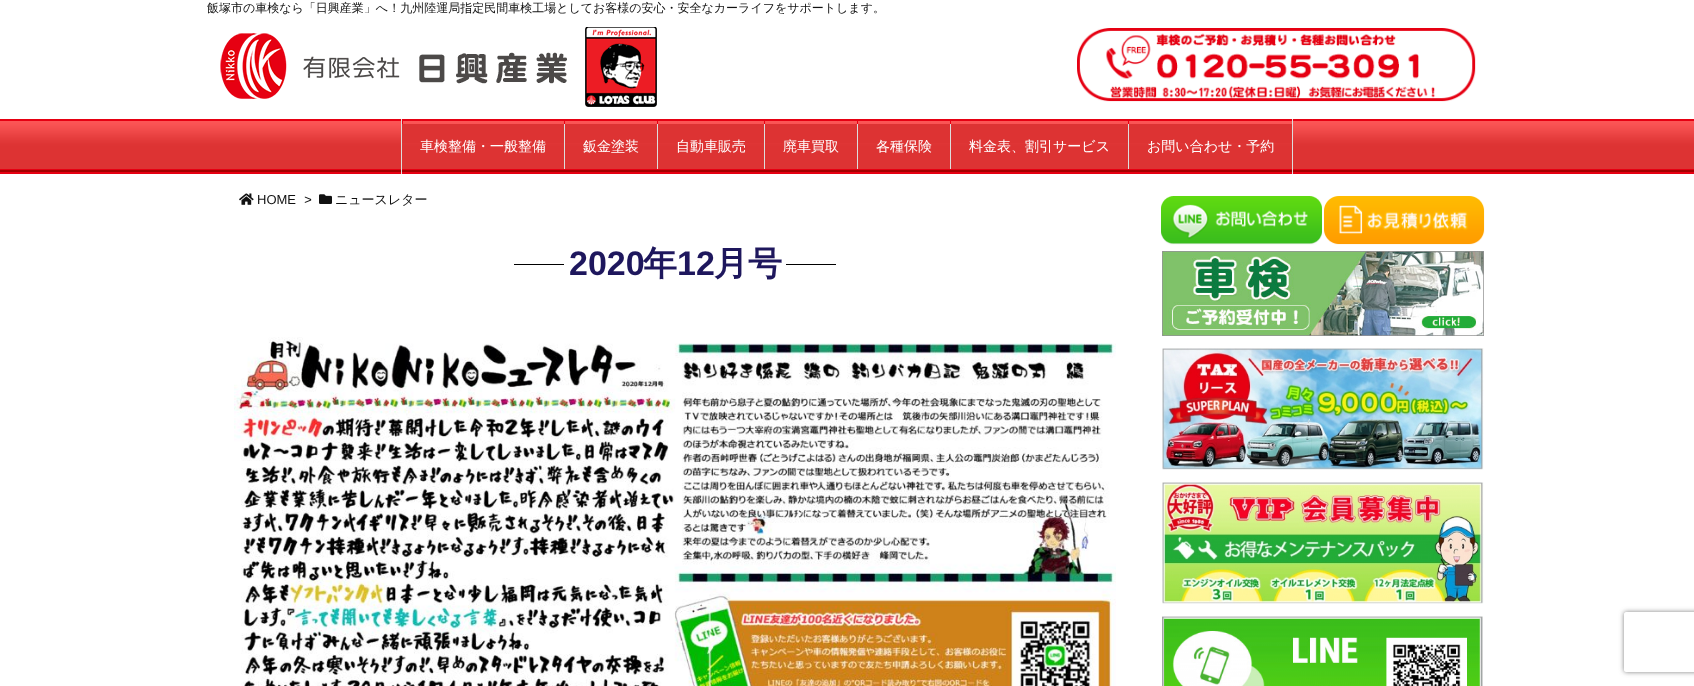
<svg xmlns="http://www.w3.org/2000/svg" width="1694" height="686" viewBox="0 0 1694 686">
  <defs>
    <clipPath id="clip1"><path d="M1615 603H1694V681H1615ZM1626 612H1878C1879 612 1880 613 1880 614V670C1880 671 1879 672 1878 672H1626C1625 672 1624 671 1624 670V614C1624 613 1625 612 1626 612Z" clip-rule="evenodd"/></clipPath>
    <filter id="blur1" x="-50%" y="-200%" width="200%" height="500%"><feGaussianBlur stdDeviation="2.5"/></filter>
  </defs>
  <rect width="100%" height="100%" fill="#ffffff"/>
  <text x="207" y="12" font-family="WenQuanYi Zen Hei" font-size="12" font-weight="500" fill="#111111">飯塚市の車検なら「日興産業」へ！九州陸運局指定民間車検工場としてお客様の安心・安全なカーライフをサポートします。</text>
  <image x="220" y="27" width="437" height="80" href="img1.png"/>
  <image x="1077" y="28" width="399" height="74" href="img2.png"/>
  <image x="0" y="119" width="1694" height="55" href="img3.png"/>
  <image x="402" y="119" width="890" height="55" href="img4.png"/>
  <rect x="1292" y="119" width="1" height="55" fill="#dddddd"/>
  <rect x="401" y="119" width="1" height="55" fill="#dddddd"/>
  <rect x="402" y="121" width="1" height="3" fill="#e60012"/>
  <rect x="402" y="124" width="162" height="19" fill="#dd3333"/>
  <text x="420" y="151" font-family="WenQuanYi Zen Hei" font-size="14" font-weight="500" fill="#ffffff">車検整備・一般整備</text>
  <rect x="564" y="121" width="1" height="3" fill="#e60012"/>
  <rect x="565" y="124" width="92" height="19" fill="#dd3333"/>
  <rect x="564" y="124" width="1" height="45" fill="#dddddd"/>
  <text x="583" y="151" font-family="WenQuanYi Zen Hei" font-size="14" font-weight="500" fill="#ffffff">鈑金塗装</text>
  <rect x="657" y="121" width="1" height="3" fill="#e60012"/>
  <rect x="658" y="124" width="106" height="19" fill="#dd3333"/>
  <rect x="657" y="124" width="1" height="45" fill="#dddddd"/>
  <text x="676" y="151" font-family="WenQuanYi Zen Hei" font-size="14" font-weight="500" fill="#ffffff">自動車販売</text>
  <rect x="764" y="121" width="1" height="3" fill="#e60012"/>
  <rect x="765" y="124" width="92" height="19" fill="#dd3333"/>
  <rect x="764" y="124" width="1" height="45" fill="#dddddd"/>
  <text x="783" y="151" font-family="WenQuanYi Zen Hei" font-size="14" font-weight="500" fill="#ffffff">廃車買取</text>
  <rect x="857" y="121" width="1" height="3" fill="#e60012"/>
  <rect x="858" y="124" width="92" height="19" fill="#dd3333"/>
  <rect x="857" y="124" width="1" height="45" fill="#dddddd"/>
  <text x="876" y="151" font-family="WenQuanYi Zen Hei" font-size="14" font-weight="500" fill="#ffffff">各種保険</text>
  <rect x="950" y="121" width="1" height="3" fill="#e60012"/>
  <rect x="951" y="124" width="177" height="19" fill="#dd3333"/>
  <rect x="950" y="124" width="1" height="45" fill="#dddddd"/>
  <text x="969" y="151" font-family="WenQuanYi Zen Hei" font-size="14" font-weight="500" fill="#ffffff">料金表、割引サービス</text>
  <rect x="1128" y="121" width="1" height="3" fill="#e60012"/>
  <rect x="1129" y="124" width="163" height="19" fill="#dd3333"/>
  <rect x="1128" y="124" width="1" height="45" fill="#dddddd"/>
  <text x="1147" y="151" font-family="WenQuanYi Zen Hei" font-size="14" font-weight="500" fill="#ffffff">お問い合わせ・予約</text>
  <image x="239" y="193" width="15" height="12" href="img5.png"/>
  <text x="257" y="204" font-family="Liberation Sans" font-size="13" fill="#111111">HOME</text>
  <text x="304" y="204" font-family="Liberation Sans" font-size="13" font-style="italic" fill="#111111">&gt;</text>
  <image x="319" y="194" width="13" height="10" href="img6.png"/>
  <text x="335" y="204" font-family="WenQuanYi Zen Hei" font-size="13" font-weight="500" fill="#111111">ニュースレター</text>
  <rect x="514" y="264" width="50" height="1" fill="#000000"/>
  <text x="569" y="275" font-family="Liberation Sans" font-size="34" font-weight="bold" fill="#1e175d">2020</text>
  <text x="643" y="275" font-family="WenQuanYi Zen Hei" font-size="34" font-weight="bold" fill="#1e175d">年</text>
  <text x="677" y="275" font-family="Liberation Sans" font-size="34" font-weight="bold" fill="#1e175d">12</text>
  <text x="714" y="275" font-family="WenQuanYi Zen Hei" font-size="34" font-weight="bold" fill="#1e175d">月号</text>
  <rect x="786" y="264" width="50" height="1" fill="#000000"/>
  <image x="234" y="337" width="882" height="349" href="img7.png"/>
  <image x="1161" y="196" width="161" height="49" href="img8.png"/>
  <image x="1324" y="196" width="161" height="49" href="img9.png"/>
  <image x="1162" y="251" width="322" height="85" href="img10.png"/>
  <image x="1162" y="348" width="322" height="122" href="img11.png"/>
  <image x="1162" y="482" width="322" height="122" href="img12.png"/>
  <image x="1162" y="616" width="321" height="70" href="img13.png"/>
  <g clip-path="url(#clip1)">
    <rect x="1624" y="612" width="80" height="60" rx="2" fill="#808080" filter="url(#blur1)"/>
  </g>
</svg>
